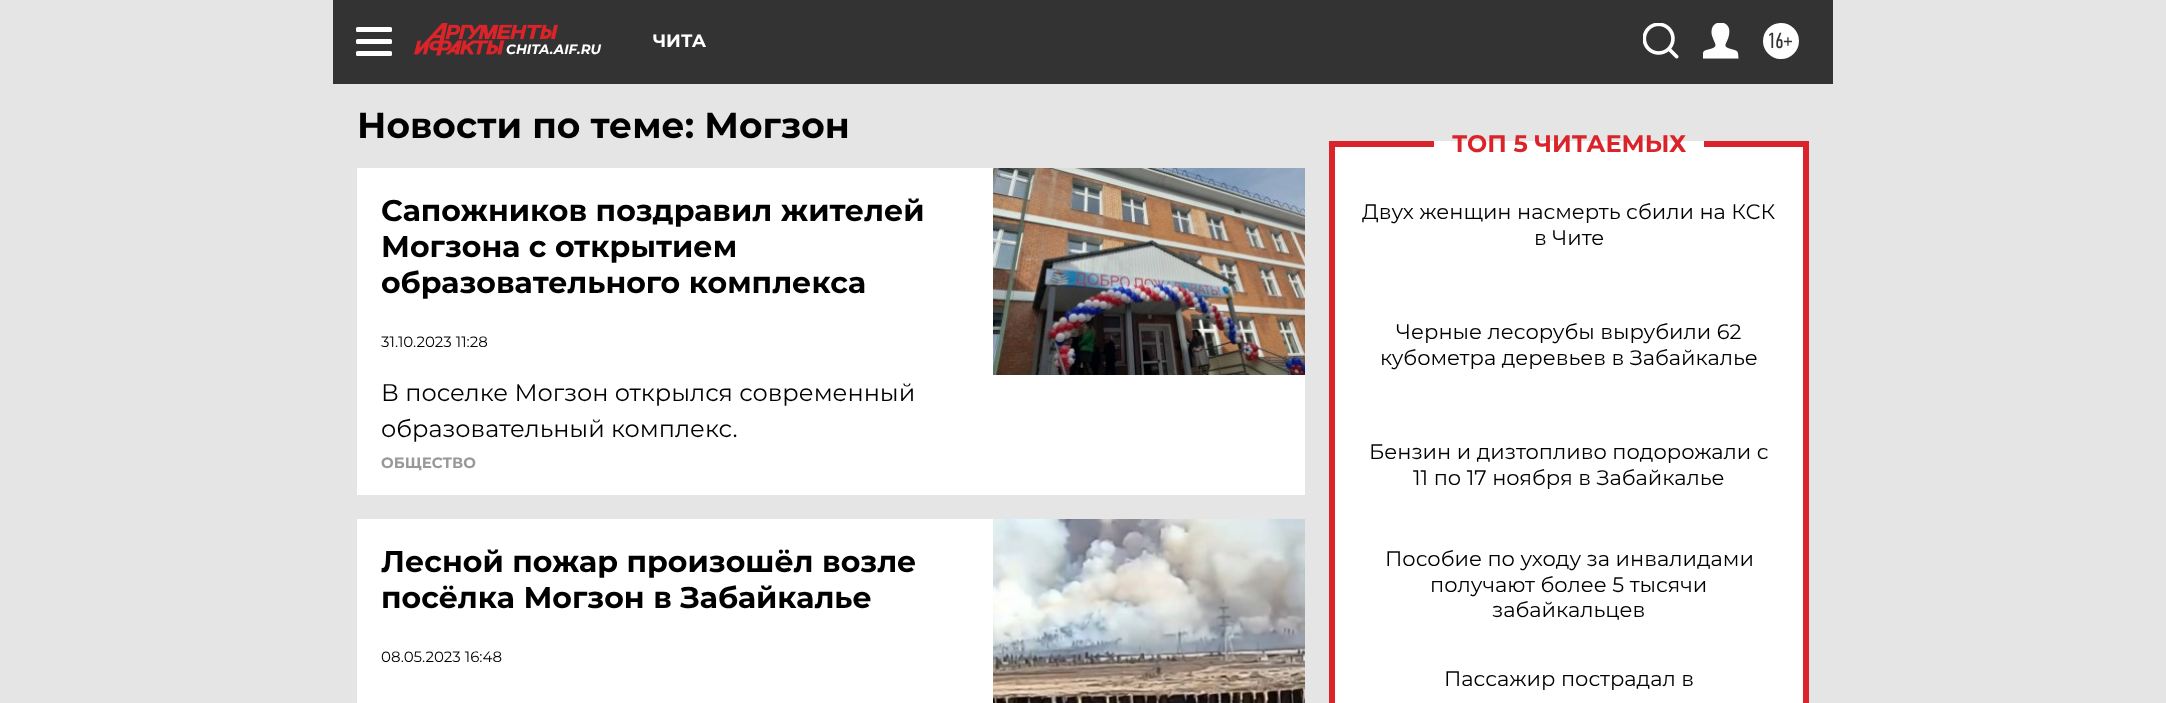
<svg xmlns="http://www.w3.org/2000/svg" width="2166" height="703" viewBox="0 0 2166 703">
  <rect width="100%" height="100%" fill="#e5e5e5"/>
  <rect x="333" y="0" width="1500" height="84" fill="#333333"/>
  <rect x="356" y="27" width="36" height="5" rx="1.5" fill="#ffffff"/>
  <rect x="356" y="39" width="36" height="5" rx="1.5" fill="#ffffff"/>
  <rect x="356" y="51" width="36" height="5" rx="1.5" fill="#ffffff"/>
  <text x="653" y="47" font-family="Montserrat" font-size="18" font-weight="bold" fill="#ffffff">ЧИТА</text>
  <image x="1643" y="23" width="36" height="36" href="img1.png"/>
  <image x="1703" y="23" width="36" height="36" href="img2.png"/>
  <circle cx="1781" cy="41" r="18" fill="#ffffff"/>
  <text x="1767" y="48" font-family="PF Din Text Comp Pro" font-size="22" fill="#333333">16+</text>
  <image x="414" y="23" width="144" height="33" href="img3.png"/>
  <text x="506" y="54" font-family="Montserrat" font-size="13.5" font-weight="bold" font-style="italic" fill="#ffffff">CHITA.AIF.RU</text>
  <text x="357" y="138" font-family="Montserrat" font-size="36" font-weight="bold" fill="#000000">Новости по теме: Могзон</text>
  <rect x="357" y="168" width="948" height="327" fill="#ffffff"/>
  <text x="381" y="221" font-family="Montserrat" font-size="30" font-weight="bold" fill="#000000">Сапожников поздравил жителей</text>
  <text x="381" y="257" font-family="Montserrat" font-size="30" font-weight="bold" fill="#000000">Могзона с открытием</text>
  <text x="381" y="293" font-family="Montserrat" font-size="30" font-weight="bold" fill="#000000">образовательного комплекса</text>
  <text x="381" y="347" font-family="Montserrat" font-size="15" fill="#000000">31.10.2023 11:28</text>
  <text x="381" y="401" font-family="Montserrat" font-size="24" fill="#000000">В поселке Могзон открылся современный</text>
  <text x="381" y="437" font-family="Montserrat" font-size="24" fill="#000000">образовательный комплекс.</text>
  <image x="993" y="168" width="312" height="207" href="img4.png"/>
  <text x="381" y="468" font-family="Montserrat" font-size="15" font-weight="bold" fill="#999999">ОБЩЕСТВО</text>
  <rect x="357" y="519" width="636" height="184" fill="#ffffff"/>
  <text x="381" y="572" font-family="Montserrat" font-size="30" font-weight="bold" fill="#000000">Лесной пожар произошёл возле</text>
  <text x="381" y="608" font-family="Montserrat" font-size="30" font-weight="bold" fill="#000000">посёлка Могзон в Забайкалье</text>
  <text x="381" y="662" font-family="Montserrat" font-size="15" fill="#000000">08.05.2023 16:48</text>
  <image x="993" y="519" width="312" height="184" href="img5.png"/>
  <rect x="1335" y="141" width="468" height="562" fill="#ffffff"/>
  <rect x="1329" y="141" width="6" height="562" fill="#da2429"/>
  <rect x="1329" y="141" width="105" height="6" fill="#da2429"/>
  <text x="1452" y="152" font-family="Montserrat" font-size="24" font-weight="bold" fill="#da2429">ТОП 5 ЧИТАЕМЫХ</text>
  <rect x="1803" y="141" width="6" height="562" fill="#da2429"/>
  <rect x="1704" y="141" width="105" height="6" fill="#da2429"/>
  <text x="1362" y="219" font-family="Montserrat" font-size="21" fill="#000000">Двух женщин насмерть сбили на КСК</text>
  <text x="1534" y="245" font-family="Montserrat" font-size="21" fill="#000000">в Чите</text>
  <text x="1396" y="339" font-family="Montserrat" font-size="21" fill="#000000">Черные лесорубы вырубили 62</text>
  <text x="1380" y="365" font-family="Montserrat" font-size="21" fill="#000000">кубометра деревьев в Забайкалье</text>
  <text x="1369" y="459" font-family="Montserrat" font-size="21" fill="#000000">Бензин и дизтопливо подорожали с</text>
  <text x="1413" y="485" font-family="Montserrat" font-size="21" fill="#000000">11 по 17 ноября в Забайкалье</text>
  <text x="1385" y="566" font-family="Montserrat" font-size="21" fill="#000000">Пособие по уходу за инвалидами</text>
  <text x="1430" y="592" font-family="Montserrat" font-size="21" fill="#000000">получают более 5 тысячи</text>
  <text x="1492" y="617" font-family="Montserrat" font-size="21" fill="#000000">забайкальцев</text>
  <text x="1444" y="686" font-family="Montserrat" font-size="21" fill="#000000">Пассажир пострадал в</text>
</svg>
